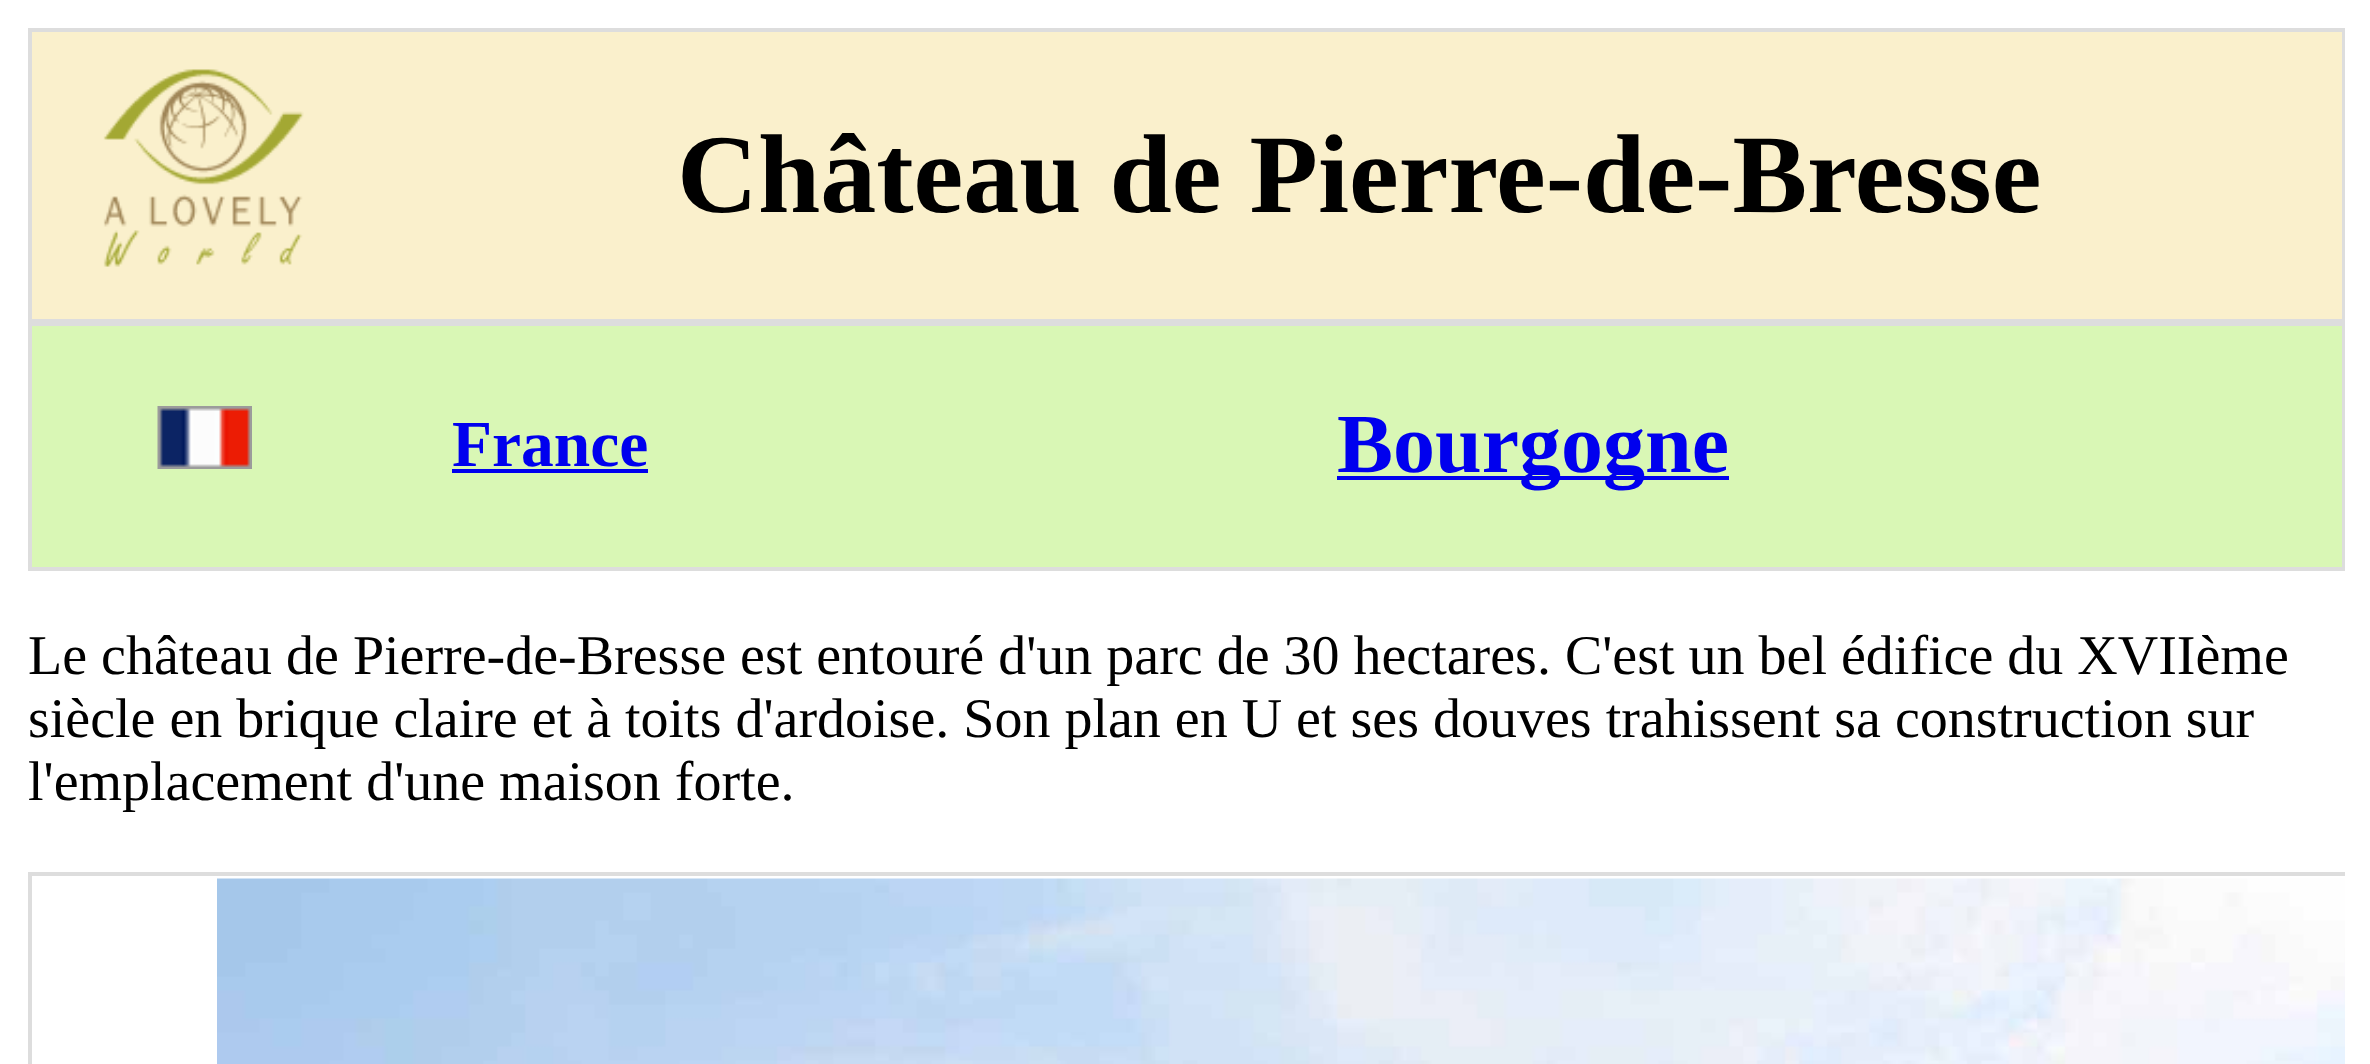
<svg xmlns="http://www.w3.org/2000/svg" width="2370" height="1064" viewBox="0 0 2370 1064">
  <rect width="100%" height="100%" fill="#ffffff"/>
  <rect x="32" y="32" width="2310" height="287" fill="#faf0cc"/>
  <rect x="28" y="28" width="2317" height="4" fill="#dddddd"/>
  <rect x="2342" y="28" width="3" height="294" fill="#dddddd"/>
  <rect x="28" y="319" width="2317" height="7" fill="#dddddd"/>
  <rect x="28" y="28" width="4" height="294" fill="#dddddd"/>
  <image x="103" y="69" width="201" height="198" href="img1.png"/>
  <text x="677" y="212" font-family="Liberation Serif" font-size="112" font-weight="bold" fill="#000000">Château de Pierre-de-Bresse</text>
  <rect x="32" y="326" width="2310" height="241" fill="#d9f7b5"/>
  <rect x="2342" y="322" width="3" height="249" fill="#dddddd"/>
  <rect x="28" y="567" width="2317" height="4" fill="#dddddd"/>
  <rect x="28" y="322" width="4" height="249" fill="#dddddd"/>
  <image x="157" y="406" width="95" height="63" href="img2.png"/>
  <text x="452" y="466" font-family="Liberation Serif" font-size="65.5" font-weight="bold" fill="#0000ee">France</text>
  <rect x="452" y="469" width="196" height="4" fill="#0000ee"/>
  <rect x="1337" y="476" width="392" height="4" fill="#0000ee"/>
  <text x="1337" y="472" font-family="Liberation Serif" font-size="84" font-weight="bold" fill="#0000ee">Bourgogne</text>
  <text x="28" y="674" font-family="Liberation Serif" font-size="56" fill="#000000">Le château de Pierre-de-Bresse est entouré d'un parc de 30 hectares. C'est un bel édifice du XVIIème</text>
  <text x="28" y="737" font-family="Liberation Serif" font-size="56" fill="#000000">siècle en brique claire et à toits d'ardoise. Son plan en U et ses douves trahissent sa construction sur</text>
  <text x="28" y="800" font-family="Liberation Serif" font-size="56" fill="#000000">l'emplacement d'une maison forte.</text>
  <rect x="28" y="872" width="2317" height="4" fill="#dddddd"/>
  <rect x="28" y="872" width="4" height="192" fill="#dddddd"/>
  <image x="217" y="878" width="2128" height="186" href="img3.png"/>
</svg>
